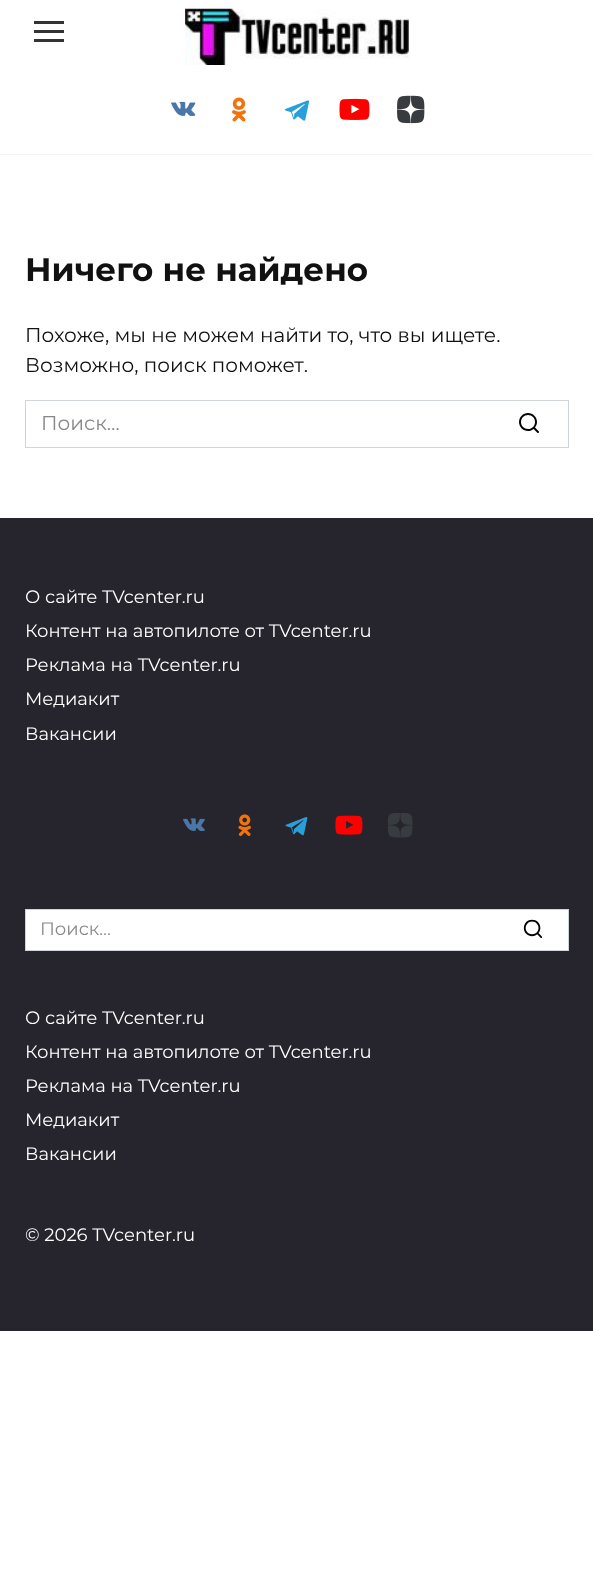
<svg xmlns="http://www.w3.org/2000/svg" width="593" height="1578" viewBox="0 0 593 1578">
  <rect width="100%" height="100%" fill="#ffffff"/>
  <rect x="0" y="154" width="593" height="1" fill="#f2f5f9"/>
  <rect x="34" y="21" width="30" height="3" fill="#333333"/>
  <rect x="34" y="30" width="30" height="3" fill="#333333"/>
  <rect x="34" y="39" width="30" height="3" fill="#333333"/>
  <image x="185" y="8" width="225" height="57" href="img1.png"/>
  <image x="171" y="101" width="25" height="15" href="img2.png"/>
  <image x="232" y="97" width="14" height="25" href="img3.png"/>
  <image x="284" y="100" width="26" height="21" href="img4.png"/>
  <image x="339" y="98" width="31" height="22" href="img5.png"/>
  <image x="397" y="95" width="28" height="29" href="img6.png"/>
  <text x="25" y="281" font-family="Montserrat" font-size="32.5" font-weight="bold" fill="#111111">Ничего не найдено</text>
  <text x="25" y="342" font-family="Montserrat" font-size="20" fill="#111111">Похоже, мы не можем найти то, что вы ищете.</text>
  <text x="25" y="372" font-family="Montserrat" font-size="20" fill="#111111">Возможно, поиск поможет.</text>
  <rect x="25.5" y="400.5" width="543" height="47" fill="none" stroke="#ced4da"/>
  <text x="41" y="430" font-family="Montserrat" font-size="20" fill="#888888">Поиск…</text>
  <text x="517" y="433" font-family="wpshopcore" font-size="24" fill="#000000">🔍</text>
  <rect x="0" y="518" width="593" height="813" fill="#26252d"/>
  <text x="25" y="603" font-family="Montserrat" font-size="18" fill="#ffffff">О сайте TVcenter.ru</text>
  <text x="25" y="637" font-family="Montserrat" font-size="18" fill="#ffffff">Контент на автопилоте от TVcenter.ru</text>
  <text x="25" y="671" font-family="Montserrat" font-size="18" fill="#ffffff">Реклама на TVcenter.ru</text>
  <text x="25" y="705" font-family="Montserrat" font-size="18" fill="#ffffff">Медиакит</text>
  <text x="25" y="740" font-family="Montserrat" font-size="18" fill="#ffffff">Вакансии</text>
  <image x="183" y="818" width="22" height="13" href="img7.png"/>
  <image x="238" y="814" width="13" height="22" href="img8.png"/>
  <image x="285" y="817" width="23" height="19" href="img9.png"/>
  <image x="335" y="815" width="28" height="20" href="img10.png"/>
  <image x="388" y="813" width="25" height="25" href="img11.png"/>
  <rect x="25.5" y="909.5" width="543" height="41" fill="#ffffff" stroke="#ced4da"/>
  <text x="40" y="935" font-family="Montserrat" font-size="18" fill="#888888">Поиск…</text>
  <text x="522" y="938" font-family="wpshopcore" font-size="22" fill="#000000">🔍</text>
  <text x="25" y="1024" font-family="Montserrat" font-size="18" fill="#ffffff">О сайте TVcenter.ru</text>
  <text x="25" y="1058" font-family="Montserrat" font-size="18" fill="#ffffff">Контент на автопилоте от TVcenter.ru</text>
  <text x="25" y="1092" font-family="Montserrat" font-size="18" fill="#ffffff">Реклама на TVcenter.ru</text>
  <text x="25" y="1126" font-family="Montserrat" font-size="18" fill="#ffffff">Медиакит</text>
  <text x="25" y="1160" font-family="Montserrat" font-size="18" fill="#ffffff">Вакансии</text>
  <text x="25" y="1241" font-family="Montserrat" font-size="18" fill="#ffffff">© 2026 TVcenter.ru</text>
</svg>
